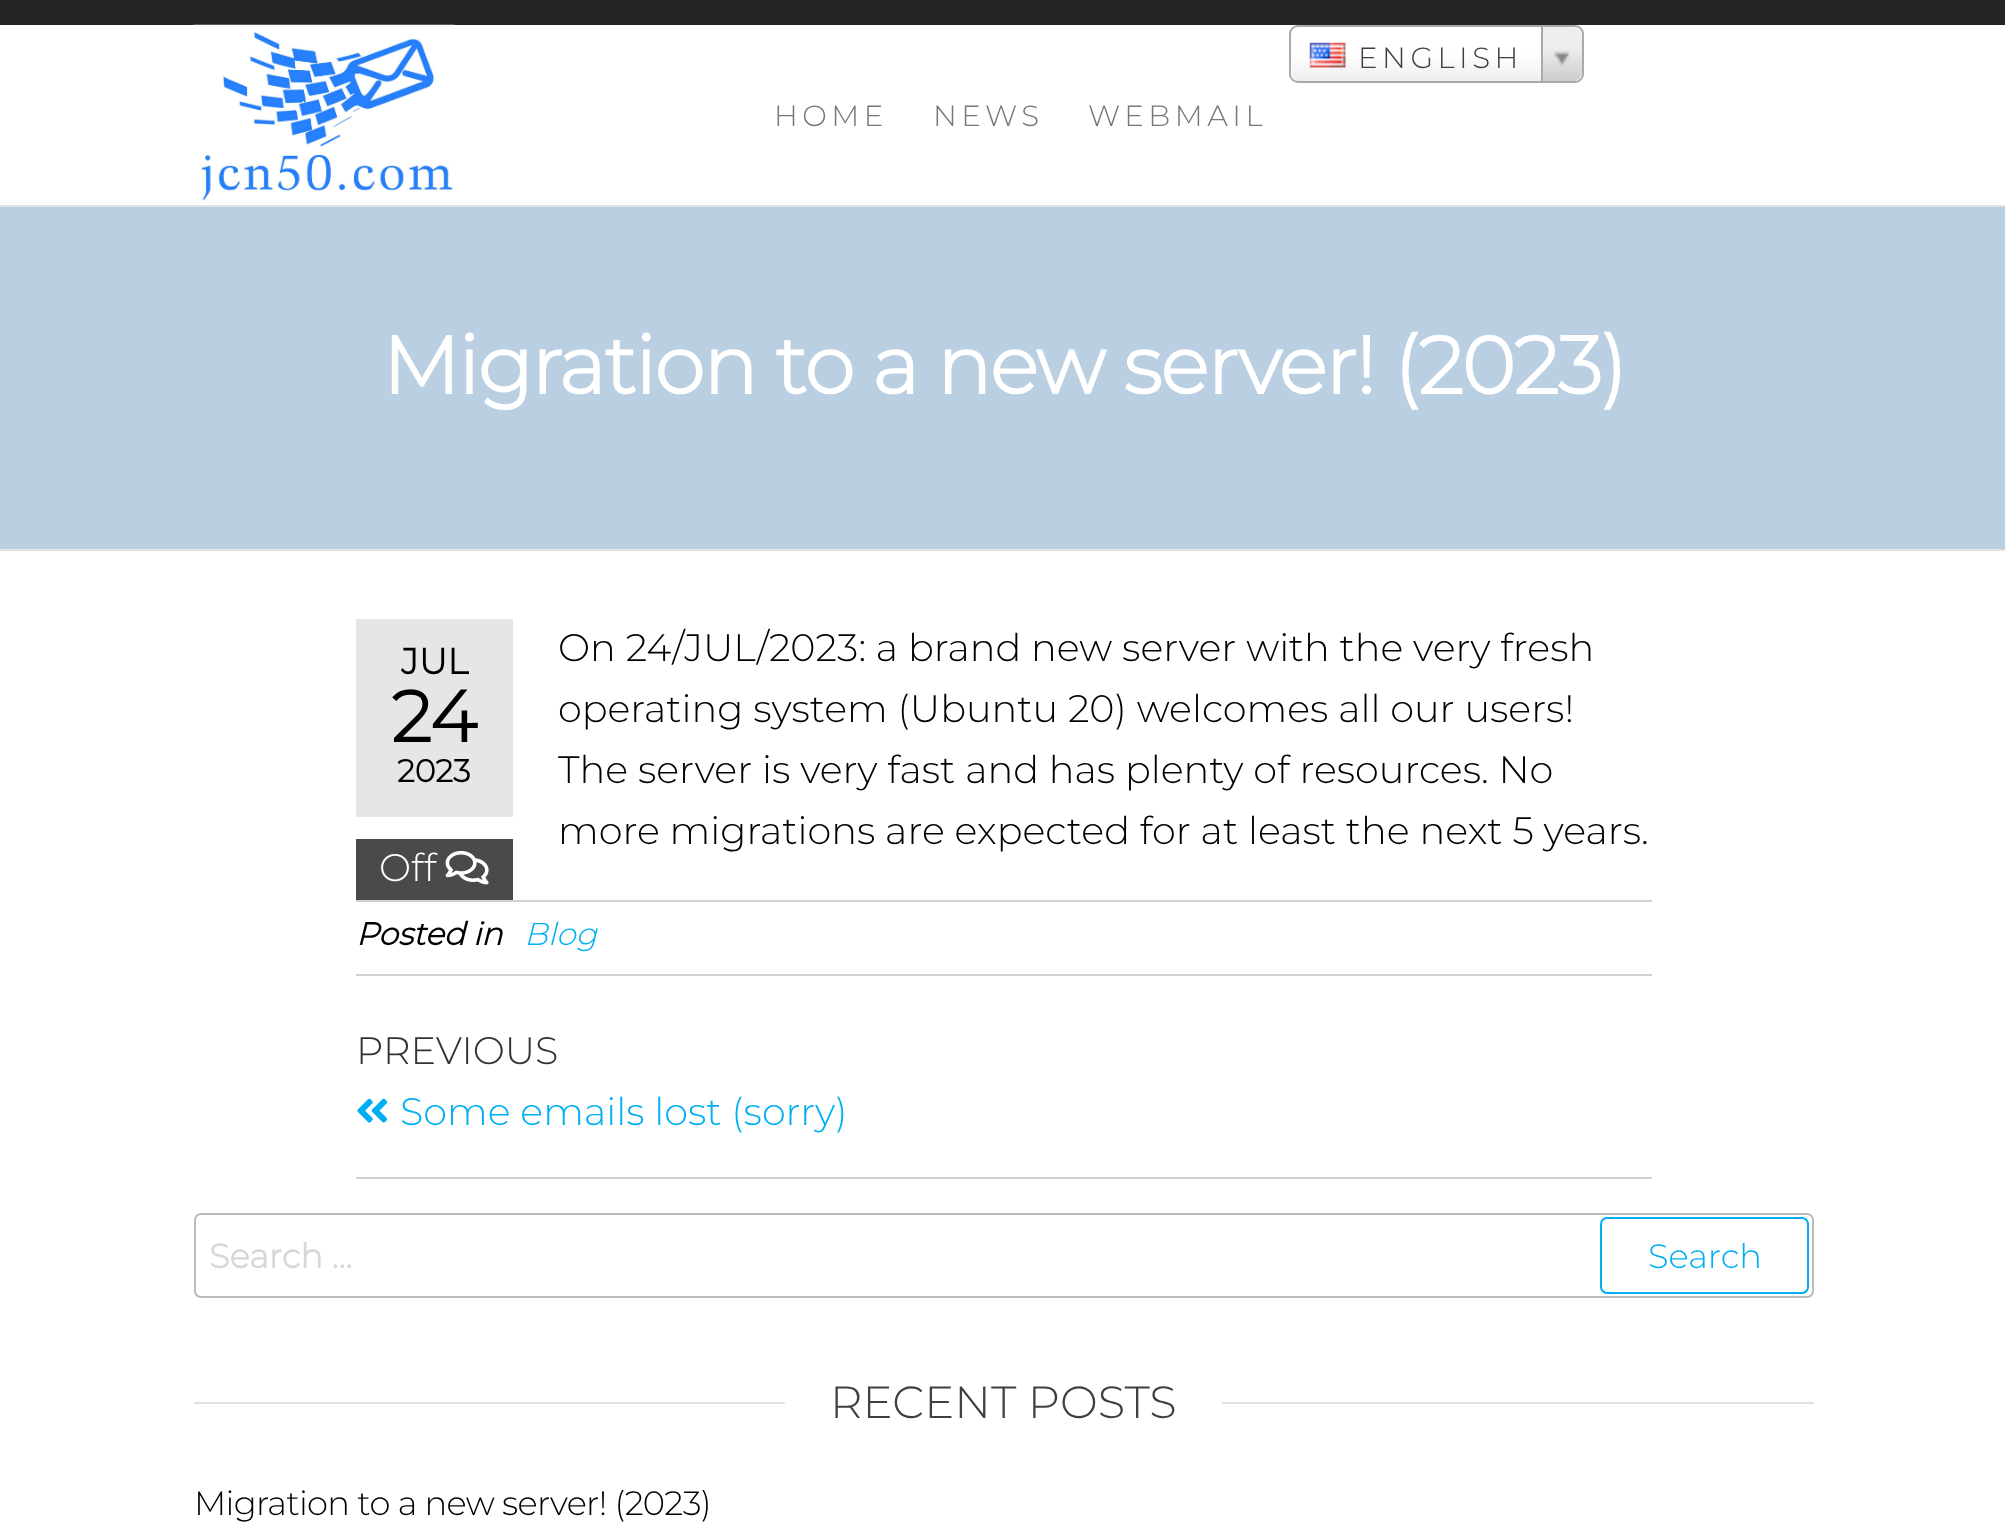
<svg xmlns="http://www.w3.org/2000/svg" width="2005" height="1525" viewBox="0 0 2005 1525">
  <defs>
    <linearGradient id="g1" gradientUnits="userSpaceOnUse" x1="1292" y1="81" x2="1292" y2="27"><stop offset="0" stop-color="#eeeeee"/><stop offset="0.5" stop-color="#ffffff"/></linearGradient>
    <linearGradient id="g2" gradientUnits="userSpaceOnUse" x1="1544" y1="81" x2="1544" y2="27"><stop offset="0" stop-color="#cccccc"/><stop offset="0.6" stop-color="#eeeeee"/></linearGradient>
  </defs>
  <rect width="100%" height="100%" fill="#ffffff"/>
  <rect x="0" y="0" width="2005" height="25" fill="#242424"/>
  <rect x="0" y="205" width="2005" height="2" fill="#e2e2e2"/>
  <image x="193" y="24" width="262" height="177" href="img1.png"/>
  <rect x="1292" y="27" width="290" height="54" rx="7" fill="url(#g1)"/>
  <rect x="1290" y="26" width="293" height="56" rx="8" fill="none" stroke="#aaaaaa" stroke-width="2"/>
  <image x="1309" y="42" width="37" height="26" href="img2.png"/>
  <text x="1358" y="68" font-family="Montserrat" font-size="29.25" font-weight="100" letter-spacing="4.5" fill="#404040">ENGLISH</text>
  <path d="M1541 27H1573C1578 27 1582 31 1582 36V72C1582 77 1578 81 1573 81H1541Z" fill="url(#g2)"/>
  <rect x="1541" y="27" width="2" height="54" fill="#aaaaaa"/>
  <image x="1554" y="51" width="16" height="15" href="img3.png"/>
  <text x="774" y="126" font-family="Montserrat" font-size="29.25" font-weight="100" letter-spacing="4.5" fill="#777777">HOME</text>
  <text x="933" y="126" font-family="Montserrat" font-size="29.25" font-weight="100" letter-spacing="4.5" fill="#777777">NEWS</text>
  <text x="1088" y="126" font-family="Montserrat" font-size="29.25" font-weight="100" letter-spacing="4.5" fill="#777777">WEBMAIL</text>
  <rect x="0" y="549" width="2005" height="2" fill="#e2e2e2"/>
  <rect x="0" y="207" width="2005" height="342" fill="#bacfe2"/>
  <text x="382" y="394" font-family="Montserrat" font-size="81" font-weight="bold" letter-spacing="-1.6" fill="#ffffff">Migration to a new server! (2023)</text>
  <rect x="356" y="619" width="157" height="198" fill="#e6e6e6"/>
  <text x="401" y="674" font-family="Montserrat" font-size="36" font-weight="bold" fill="#000000">JUL</text>
  <text x="391" y="742" font-family="Montserrat" font-size="72" font-weight="bold" fill="#000000">24</text>
  <text x="397" y="782" font-family="Montserrat" font-size="31.5" font-weight="bold" fill="#000000">2023</text>
  <rect x="356" y="839" width="157" height="61" fill="#4a4a4a"/>
  <text x="379" y="881" font-family="Montserrat" font-size="38.25" font-weight="100" fill="#ffffff">Off</text>
  <image x="445" y="850" width="44" height="35" href="img4.png"/>
  <text x="558" y="661" font-family="Montserrat" font-size="38.25" font-weight="100" fill="#000000">On 24/JUL/2023: a brand new server with the very fresh</text>
  <text x="558" y="722" font-family="Montserrat" font-size="38.25" font-weight="100" fill="#000000">operating system (Ubuntu 20) welcomes all our users!</text>
  <text x="558" y="783" font-family="Montserrat" font-size="38.25" font-weight="100" fill="#000000">The server is very fast and has plenty of resources. No</text>
  <text x="558" y="844" font-family="Montserrat" font-size="38.25" font-weight="100" fill="#000000">more migrations are expected for at least the next 5 years.</text>
  <rect x="356" y="900" width="1296" height="2" fill="#d1d1d1"/>
  <rect x="356" y="974" width="1296" height="2" fill="#d1d1d1"/>
  <text x="356" y="945" font-family="Montserrat" font-size="31.5" font-weight="bold" font-style="italic" fill="#000000">Posted in</text>
  <text x="524" y="945" font-family="Montserrat" font-size="31.5" font-weight="100" font-style="italic" fill="#00aff2">Blog</text>
  <rect x="356" y="1177" width="1296" height="2" fill="#d1d1d1"/>
  <text x="356" y="1064" font-family="Montserrat" font-size="38.25" font-weight="100" fill="#333333">PREVIOUS</text>
  <image x="357" y="1098" width="31" height="25" href="img5.png"/>
  <text x="400" y="1125" font-family="Montserrat" font-size="38.25" font-weight="100" fill="#00aff2">Some emails lost (sorry)</text>
  <rect x="195" y="1214" width="1618" height="83" rx="6" fill="none" stroke="#bbbbbb" stroke-width="2"/>
  <text x="209" y="1268" font-family="Montserrat" font-size="33.75" font-weight="bold" fill="#d7d7d7">Search …</text>
  <rect x="1601" y="1218" width="207" height="75" rx="6" fill="none" stroke="#00aff2" stroke-width="2"/>
  <text x="1648" y="1268" font-family="Montserrat" font-size="33.75" font-weight="100" fill="#00aff2">Search</text>
  <rect x="194" y="1402" width="1620" height="2" fill="#e2e2e2"/>
  <rect x="785" y="1402" width="437" height="2" fill="#ffffff"/>
  <text x="830" y="1418" font-family="Montserrat" font-size="45" font-weight="100" fill="#404040">RECENT POSTS</text>
  <text x="194" y="1515" font-family="Montserrat" font-size="33.75" font-weight="100" letter-spacing="-0.7" fill="#000000">Migration to a new server! (2023)</text>
</svg>
